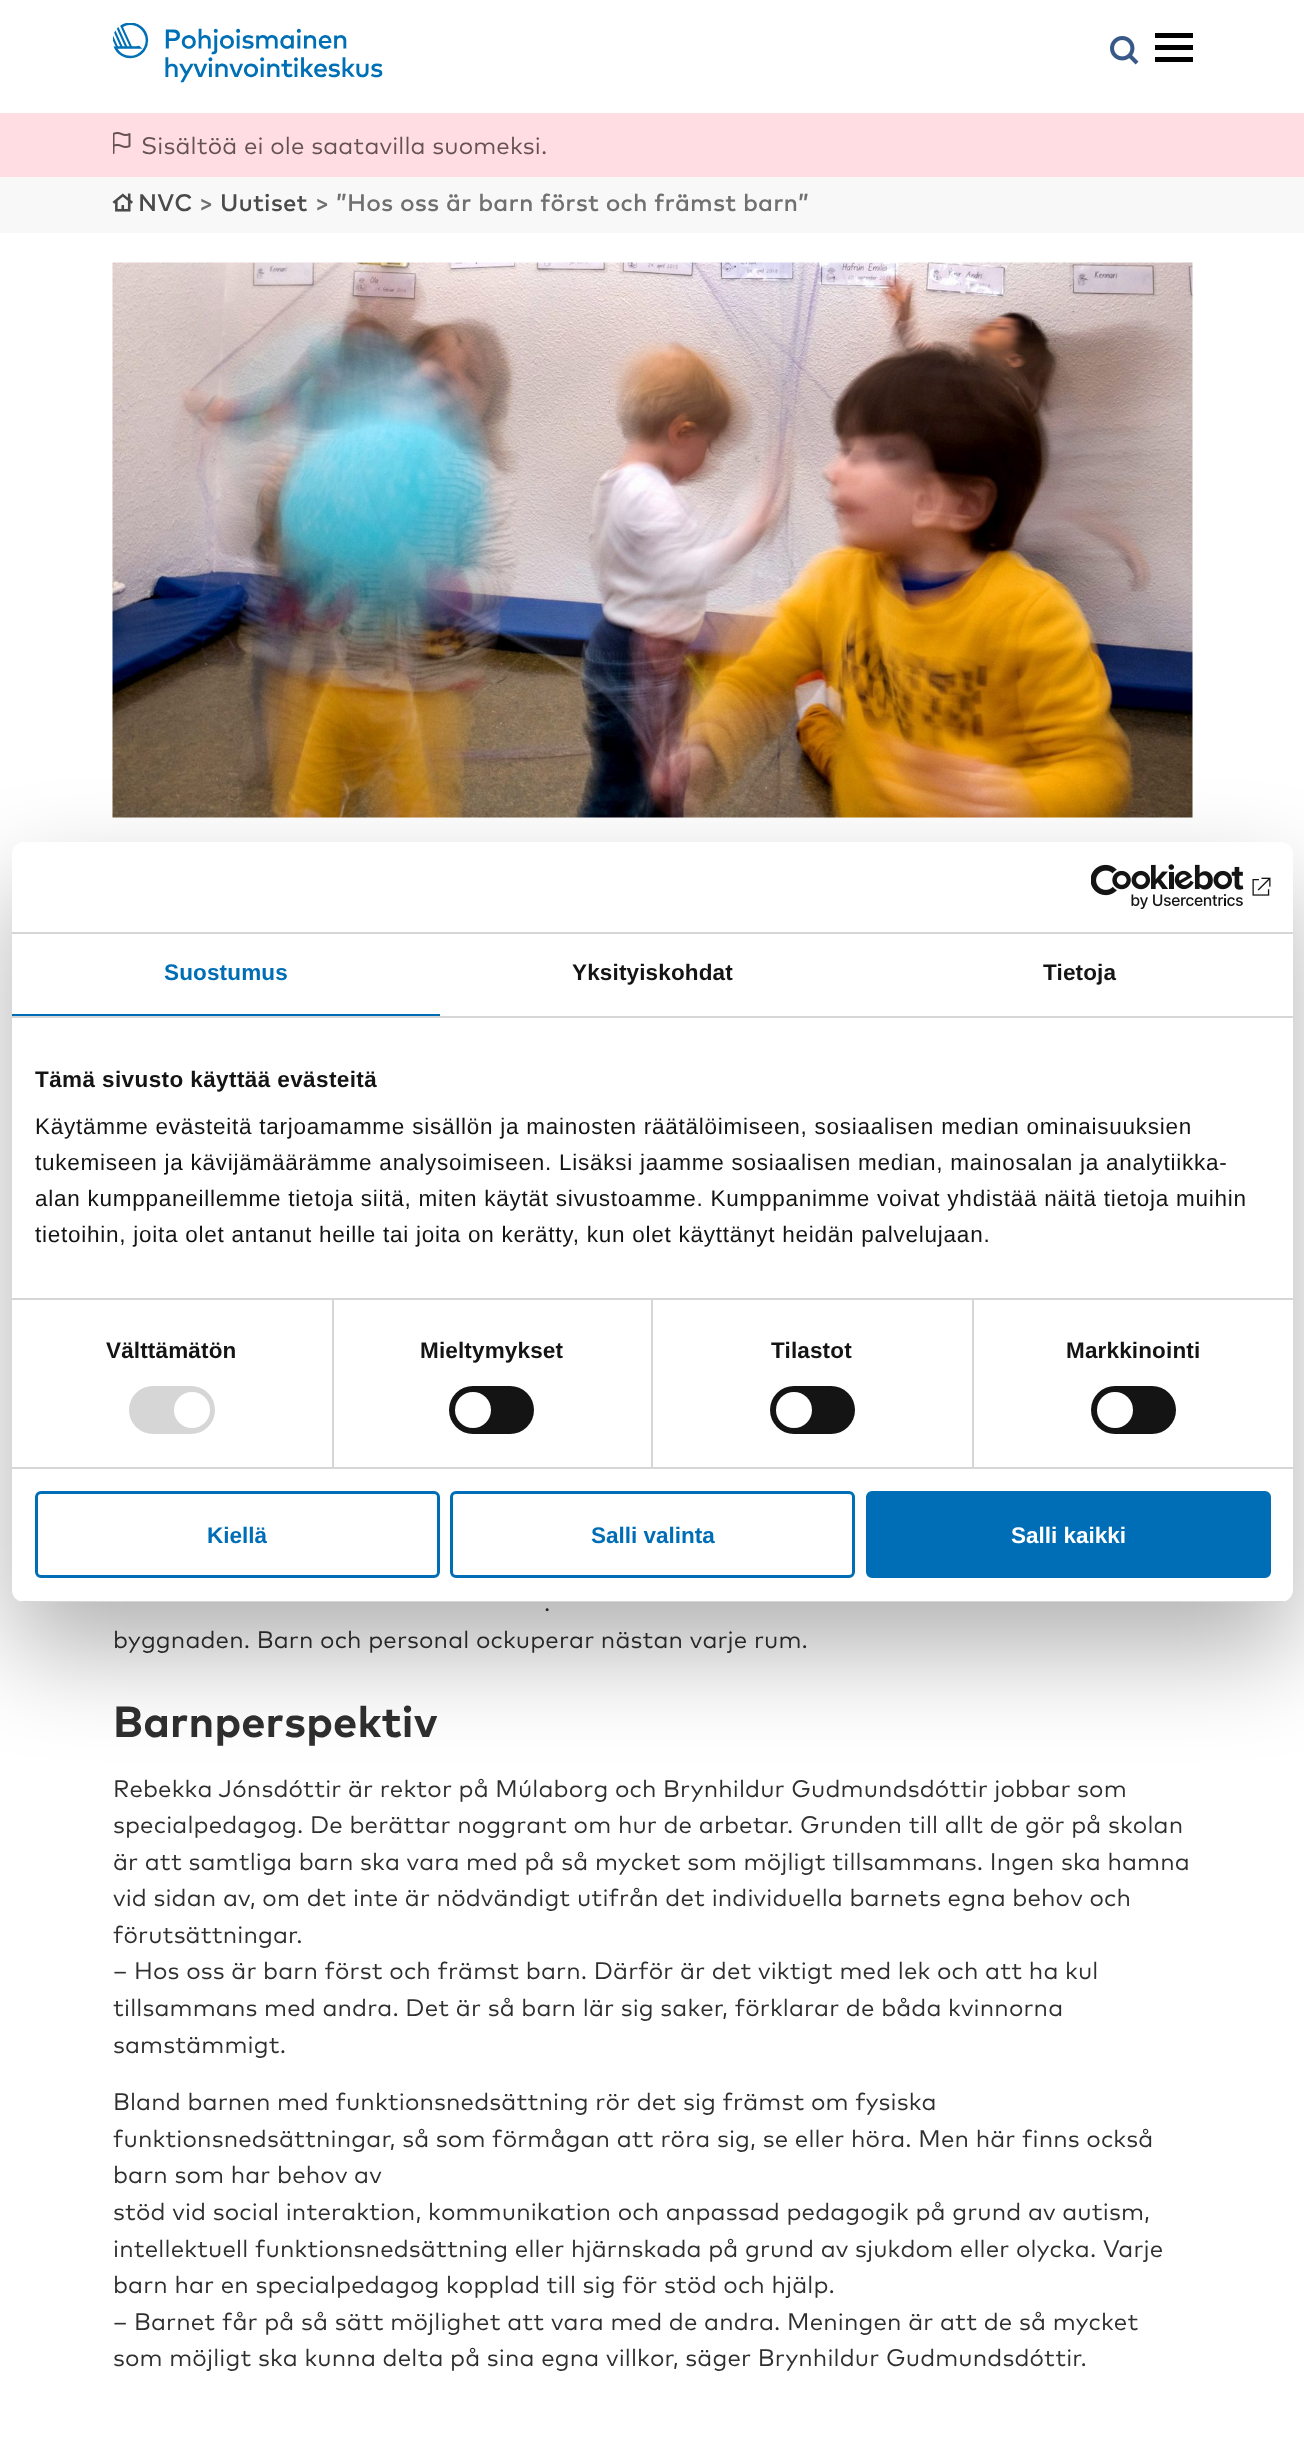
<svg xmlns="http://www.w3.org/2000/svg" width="1304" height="2443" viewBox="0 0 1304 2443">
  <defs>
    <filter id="blur1" x="-50%" y="-200%" width="200%" height="500%"><feGaussianBlur stdDeviation="51"/></filter>
    <clipPath id="clip1"><rect x="12" y="842" width="1281" height="760" rx="12"/></clipPath>
  </defs>
  <rect width="100%" height="100%" fill="#ffffff"/>
  <image x="113" y="23" width="270" height="60" href="img1.png"/>
  <image x="1110" y="36" width="29" height="29" href="img2.png"/>
  <rect x="1155" y="45" width="38" height="5" fill="#000000"/>
  <rect x="1155" y="33" width="38" height="5" fill="#000000"/>
  <rect x="1155" y="57" width="38" height="5" fill="#000000"/>
  <rect x="0" y="113" width="1304" height="64" fill="#ffdde2"/>
  <image x="113" y="132" width="18" height="22" href="img3.png"/>
  <text x="141" y="154" font-family="'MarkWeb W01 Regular'" font-size="24" letter-spacing="0.15" fill="#665255">Sisältöä ei ole saatavilla suomeksi.</text>
  <rect x="0" y="177" width="1304" height="56" fill="#f8f8f8"/>
  <image x="112" y="193" width="21" height="19" href="img4.png"/>
  <text x="138" y="211" font-family="'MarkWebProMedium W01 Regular'" font-size="24" font-weight="500" letter-spacing="0.15" fill="#4a4a4a">NVC</text>
  <text x="199" y="211" font-family="'MarkWebProMedium W01 Regular'" font-size="24" font-weight="500" letter-spacing="0.15" fill="#707070">&gt;</text>
  <text x="220" y="211" font-family="'MarkWebProMedium W01 Regular'" font-size="24" font-weight="500" letter-spacing="0.15" fill="#4a4a4a">Uutiset</text>
  <text x="315" y="211" font-family="'MarkWebProMedium W01 Regular'" font-size="24" font-weight="500" letter-spacing="0.15" fill="#707070">&gt; ”Hos oss är barn först och främst barn”</text>
  <image x="112" y="262" width="1081" height="556" href="img5.png"/>
  <text x="544" y="1611" font-family="'MarkWeb W01 Regular'" font-size="24" letter-spacing="0.15" fill="#2f2f2f">.</text>
  <text x="113" y="1648" font-family="'MarkWeb W01 Regular'" font-size="24" letter-spacing="0.15" fill="#2f2f2f">byggnaden. Barn och personal ockuperar nästan varje rum.</text>
  <text x="113" y="1737" font-family="'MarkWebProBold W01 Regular'" font-size="43.5" font-weight="bold" letter-spacing="0.15" fill="#2f2f2f">Barnperspektiv</text>
  <text x="113" y="1797" font-family="'MarkWeb W01 Regular'" font-size="24" letter-spacing="0.15" fill="#2f2f2f">Rebekka Jónsdóttir är rektor på Múlaborg och Brynhildur Gudmundsdóttir jobbar som</text>
  <text x="113" y="1833" font-family="'MarkWeb W01 Regular'" font-size="24" letter-spacing="0.15" fill="#2f2f2f">specialpedagog. De berättar noggrant om hur de arbetar. Grunden till allt de gör på skolan</text>
  <text x="113" y="1870" font-family="'MarkWeb W01 Regular'" font-size="24" letter-spacing="0.15" fill="#2f2f2f">är att samtliga barn ska vara med på så mycket som möjligt tillsammans. Ingen ska hamna</text>
  <text x="113" y="1906" font-family="'MarkWeb W01 Regular'" font-size="24" letter-spacing="0.15" fill="#2f2f2f">vid sidan av, om det inte är nödvändigt utifrån det individuella barnets egna behov och</text>
  <text x="113" y="1943" font-family="'MarkWeb W01 Regular'" font-size="24" letter-spacing="0.15" fill="#2f2f2f">förutsättningar.</text>
  <text x="113" y="1979" font-family="'MarkWeb W01 Regular'" font-size="24" letter-spacing="0.15" fill="#2f2f2f">– Hos oss är barn först och främst barn. Därför är det viktigt med lek och att ha kul</text>
  <text x="113" y="2016" font-family="'MarkWeb W01 Regular'" font-size="24" letter-spacing="0.15" fill="#2f2f2f">tillsammans med andra. Det är så barn lär sig saker, förklarar de båda kvinnorna</text>
  <text x="113" y="2053" font-family="'MarkWeb W01 Regular'" font-size="24" letter-spacing="0.15" fill="#2f2f2f">samstämmigt.</text>
  <text x="113" y="2110" font-family="'MarkWeb W01 Regular'" font-size="24" letter-spacing="0.15" fill="#2f2f2f">Bland barnen med funktionsnedsättning rör det sig främst om fysiska</text>
  <text x="113" y="2147" font-family="'MarkWeb W01 Regular'" font-size="24" letter-spacing="0.15" fill="#2f2f2f">funktionsnedsättningar, så som förmågan att röra sig, se eller höra. Men här finns också</text>
  <text x="113" y="2183" font-family="'MarkWeb W01 Regular'" font-size="24" letter-spacing="0.15" fill="#2f2f2f">barn som har behov av</text>
  <text x="113" y="2220" font-family="'MarkWeb W01 Regular'" font-size="24" letter-spacing="0.15" fill="#2f2f2f">stöd vid social interaktion, kommunikation och anpassad pedagogik på grund av autism,</text>
  <text x="113" y="2257" font-family="'MarkWeb W01 Regular'" font-size="24" letter-spacing="0.15" fill="#2f2f2f">intellektuell funktionsnedsättning eller hjärnskada på grund av sjukdom eller olycka. Varje</text>
  <text x="113" y="2293" font-family="'MarkWeb W01 Regular'" font-size="24" letter-spacing="0.15" fill="#2f2f2f">barn har en specialpedagog kopplad till sig för stöd och hjälp.</text>
  <text x="113" y="2330" font-family="'MarkWeb W01 Regular'" font-size="24" letter-spacing="0.15" fill="#2f2f2f">– Barnet får på så sätt möjlighet att vara med de andra. Meningen är att de så mycket</text>
  <text x="113" y="2366" font-family="'MarkWeb W01 Regular'" font-size="24" letter-spacing="0.15" fill="#2f2f2f">som möjligt ska kunna delta på sina egna villkor, säger Brynhildur Gudmundsdóttir.</text>
  <rect x="12" y="890" width="1281" height="760" rx="12" fill="#000000" fill-opacity="0.3" filter="url(#blur1)"/>
  <rect x="12" y="842" width="1281" height="760" rx="12" fill="#ffffff"/>
  <rect x="12" y="932" width="1281" height="2" fill="#d6d6d6"/>
  <image x="1091" y="864" width="153" height="45" href="img6.png"/>
  <image x="1252" y="877" width="19" height="19" href="img7.png"/>
  <rect x="12" y="1016" width="1281" height="2" fill="#d6d6d6"/>
  <rect x="12" y="1014" width="428" height="2" fill="#006eb6"/>
  <text x="164" y="980" font-family="Liberation Sans" font-size="22.5" font-weight="bold" letter-spacing="0.15" fill="#006eb6">Suostumus</text>
  <text x="572" y="980" font-family="Liberation Sans" font-size="22.5" font-weight="bold" letter-spacing="0.15" fill="#141414">Yksityiskohdat</text>
  <text x="1043" y="980" font-family="Liberation Sans" font-size="22.5" font-weight="bold" letter-spacing="0.15" fill="#141414">Tietoja</text>
  <rect x="332" y="1299" width="2" height="168" fill="#d6d6d6"/>
  <rect x="651" y="1299" width="2" height="168" fill="#d6d6d6"/>
  <rect x="972" y="1299" width="2" height="168" fill="#d6d6d6"/>
  <rect x="12" y="1298" width="1281" height="2" fill="#d6d6d6"/>
  <text x="35" y="1087" font-family="Liberation Sans" font-size="22.5" font-weight="bold" letter-spacing="0.4" fill="#141414">Tämä sivusto käyttää evästeitä</text>
  <text x="35" y="1134" font-family="Liberation Sans" font-size="22.5" letter-spacing="0.75" fill="#141414">Käytämme evästeitä tarjoamamme sisällön ja mainosten räätälöimiseen, sosiaalisen median ominaisuuksien</text>
  <text x="35" y="1170" font-family="Liberation Sans" font-size="22.5" letter-spacing="0.75" fill="#141414">tukemiseen ja kävijämäärämme analysoimiseen. Lisäksi jaamme sosiaalisen median, mainosalan ja analytiikka-</text>
  <text x="35" y="1206" font-family="Liberation Sans" font-size="22.5" letter-spacing="0.75" fill="#141414">alan kumppaneillemme tietoja siitä, miten käytät sivustoamme. Kumppanimme voivat yhdistää näitä tietoja muihin</text>
  <text x="35" y="1242" font-family="Liberation Sans" font-size="22.5" letter-spacing="0.75" fill="#141414">tietoihin, joita olet antanut heille tai joita on kerätty, kun olet käyttänyt heidän palvelujaan.</text>
  <rect x="12" y="1467" width="1281" height="2" fill="#d6d6d6"/>
  <text x="106" y="1358" font-family="Liberation Sans" font-size="22.5" font-weight="bold" letter-spacing="0.15" fill="#141414">Välttämätön</text>
  <rect x="129" y="1386" width="86" height="48" rx="24" fill="#d6d6d6"/>
  <circle cx="192" cy="1410" r="18" fill="#ffffff"/>
  <text x="420" y="1358" font-family="Liberation Sans" font-size="22.5" font-weight="bold" letter-spacing="0.15" fill="#141414">Mieltymykset</text>
  <rect x="449" y="1386" width="85" height="48" rx="24" fill="#141414"/>
  <circle cx="473" cy="1410" r="18" fill="#ffffff"/>
  <text x="771" y="1358" font-family="Liberation Sans" font-size="22.5" font-weight="bold" letter-spacing="0.15" fill="#141414">Tilastot</text>
  <rect x="770" y="1386" width="85" height="48" rx="24" fill="#141414"/>
  <circle cx="794" cy="1410" r="18" fill="#ffffff"/>
  <text x="1066" y="1358" font-family="Liberation Sans" font-size="22.5" font-weight="bold" letter-spacing="0.15" fill="#141414">Markkinointi</text>
  <rect x="1091" y="1386" width="85" height="48" rx="24" fill="#141414"/>
  <circle cx="1115" cy="1410" r="18" fill="#ffffff"/>
  <g clip-path="url(#clip1)">
    <rect x="12" y="1601" width="1281" height="1" fill="#d6d6d6"/>
  </g>
  <rect x="36.5" y="1492.5" width="402" height="84" rx="4.5" fill="none" stroke="#006eb6" stroke-width="3"/>
  <text x="207" y="1543" font-family="Liberation Sans" font-size="22.5" font-weight="bold" fill="#006eb6">Kiellä</text>
  <rect x="451.5" y="1492.5" width="402" height="84" rx="4.5" fill="none" stroke="#006eb6" stroke-width="3"/>
  <text x="591" y="1543" font-family="Liberation Sans" font-size="22.5" font-weight="bold" fill="#006eb6">Salli valinta</text>
  <rect x="867.5" y="1492.5" width="402" height="84" rx="4.5" fill="#006eb6" stroke="#006eb6" stroke-width="3"/>
  <text x="1011" y="1543" font-family="Liberation Sans" font-size="22.5" font-weight="bold" fill="#ffffff">Salli kaikki</text>
</svg>
